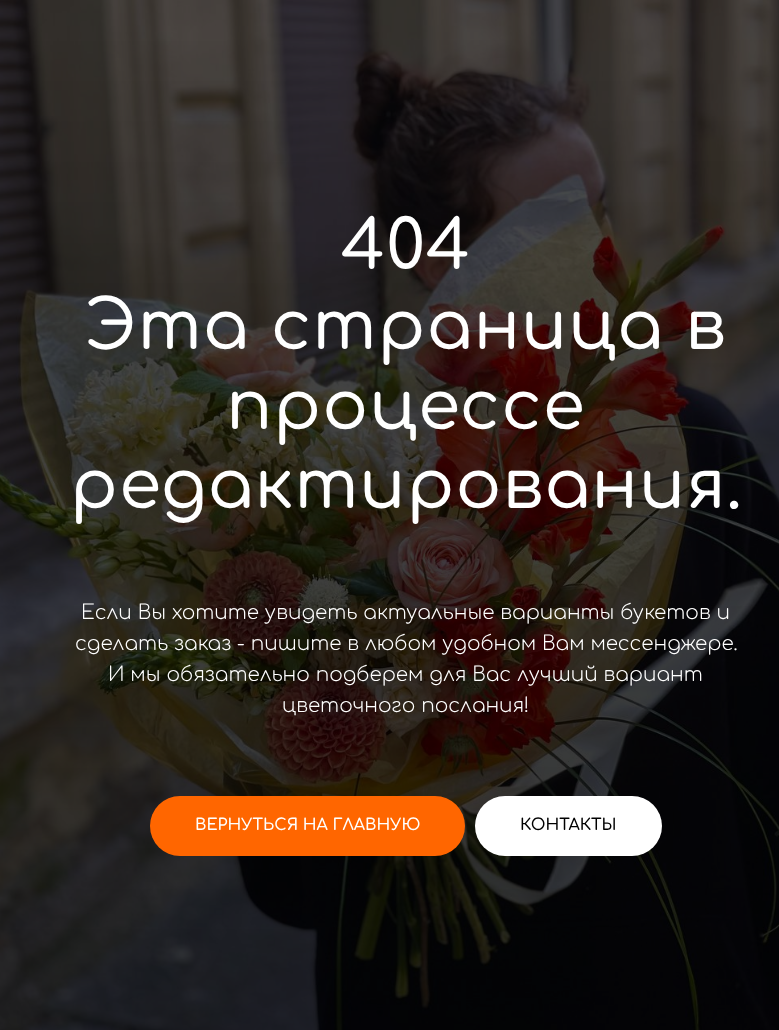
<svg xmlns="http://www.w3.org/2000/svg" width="779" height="1030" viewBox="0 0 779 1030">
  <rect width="100%" height="100%" fill="#ffffff"/>
  <image x="0" y="0" width="779" height="1030" href="img1.png"/>
  <text x="341" y="269" font-family="Comfortaa" font-size="68" font-weight="500" letter-spacing="1" fill="#ffffff">404</text>
  <text x="84" y="349" font-family="Comfortaa" font-size="68" font-weight="500" letter-spacing="1" fill="#ffffff">Эта страница в</text>
  <text x="226" y="429" font-family="Comfortaa" font-size="68" font-weight="500" letter-spacing="1" fill="#ffffff">процессе</text>
  <text x="70" y="508" font-family="Comfortaa" font-size="68" font-weight="500" letter-spacing="1" fill="#ffffff">редактирования.</text>
  <text x="81" y="619" font-family="Comfortaa" font-size="20" font-weight="300" fill="#ffffff">Если Вы хотите увидеть актуальные варианты букетов и</text>
  <text x="75" y="650" font-family="Comfortaa" font-size="20" font-weight="300" fill="#ffffff">сделать заказ - пишите в любом удобном Вам мессенджере.</text>
  <text x="108" y="681" font-family="Comfortaa" font-size="20" font-weight="300" fill="#ffffff">И мы обязательно подберем для Вас лучший вариант</text>
  <text x="282" y="712" font-family="Comfortaa" font-size="20" font-weight="300" fill="#ffffff">цветочного послания!</text>
  <rect x="150" y="796" width="315" height="60" rx="30" fill="#ff6600"/>
  <text x="195" y="830" font-family="Comfortaa" font-size="16" font-weight="600" fill="#ffffff">ВЕРНУТЬСЯ НА ГЛАВНУЮ</text>
  <rect x="475" y="796" width="187" height="60" rx="30" fill="#ffffff"/>
  <text x="520" y="830" font-family="Comfortaa" font-size="16" font-weight="600" fill="#000000">КОНТАКТЫ</text>
</svg>
